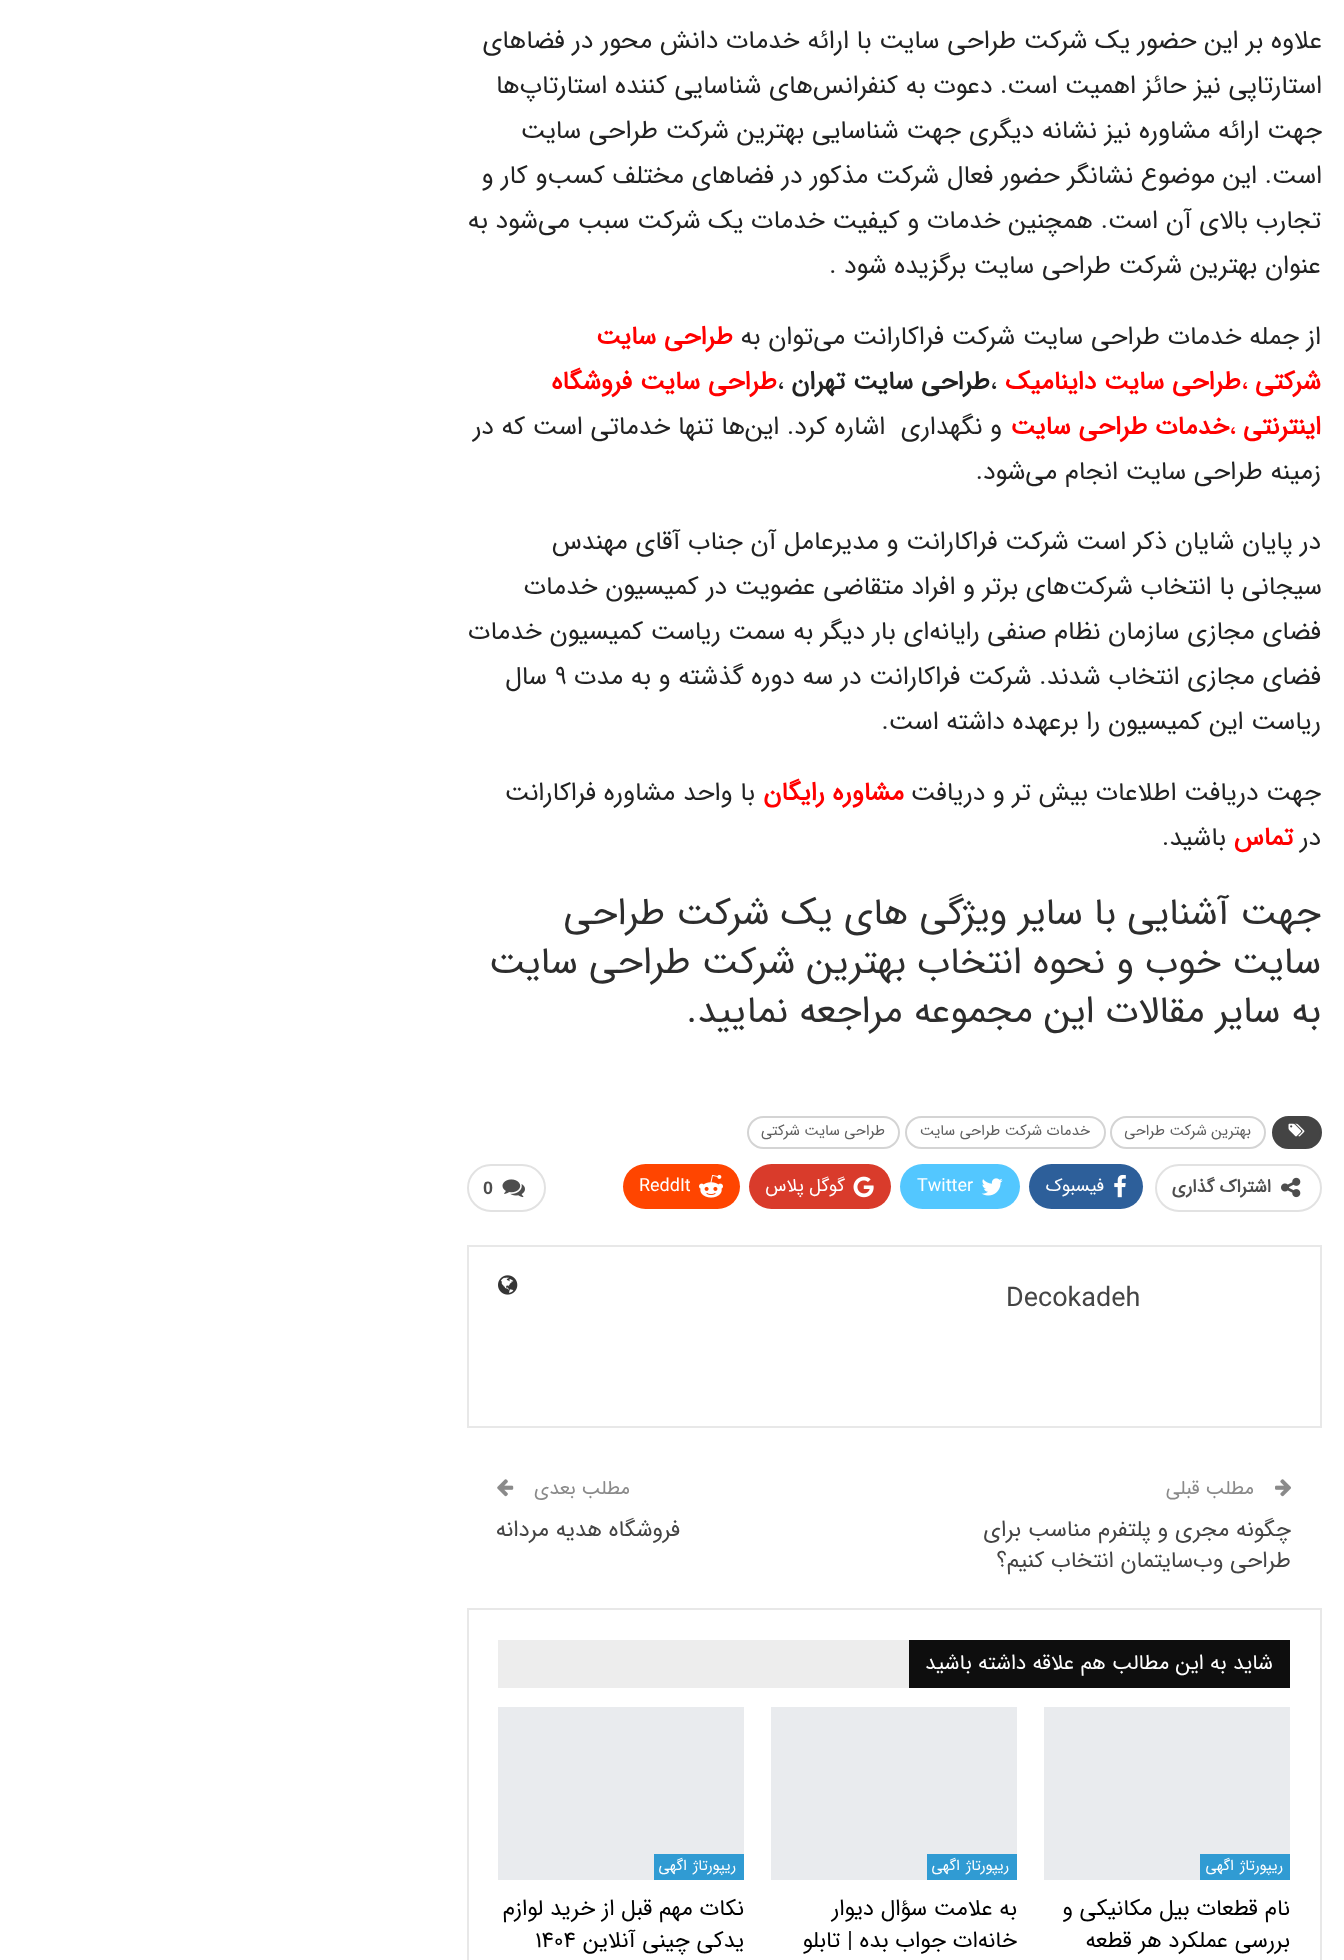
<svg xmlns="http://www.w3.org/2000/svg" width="1344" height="1960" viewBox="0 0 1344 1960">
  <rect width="100%" height="100%" fill="#ffffff"/>
  <text x="1322" y="48" font-family="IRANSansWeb" font-size="25.5" direction="rtl" fill="#222222">علاوه بر این حضور یک شرکت طراحی سایت با ارائه خدمات دانش محور در فضاهای</text>
  <text x="1322" y="93" font-family="IRANSansWeb" font-size="25.5" direction="rtl" fill="#222222">استارتاپی نیز حائز اهمیت است. دعوت به کنفرانس‌های شناسایی کننده استارتاپ‌ها</text>
  <text x="1322" y="138" font-family="IRANSansWeb" font-size="25.5" direction="rtl" fill="#222222">جهت ارائه مشاوره نیز نشانه دیگری جهت شناسایی بهترین شرکت طراحی سایت</text>
  <text x="1322" y="183" font-family="IRANSansWeb" font-size="25.5" direction="rtl" fill="#222222">است. این موضوع نشانگر حضور فعال شرکت مذکور در فضاهای مختلف کسب‌و کار و</text>
  <text x="1321" y="228" font-family="IRANSansWeb" font-size="25.5" direction="rtl" fill="#222222">تجارب بالای آن است. همچنین خدمات و کیفیت خدمات یک شرکت سبب می‌شود به</text>
  <text x="1321" y="273" font-family="IRANSansWeb" font-size="25.5" direction="rtl" fill="#222222">عنوان بهترین شرکت طراحی سایت برگزیده شود .</text>
  <text x="1321" y="344" font-family="IRANSansWeb" font-size="25.5" direction="rtl" fill="#222222">از جمله خدمات طراحی سایت شرکت فراکارانت می‌توان به</text>
  <text x="733" y="344" font-family="IRANSansWeb" font-size="25.5" font-weight="bold" direction="rtl" fill="#ff0000">طراحی سایت</text>
  <text x="1321" y="389" font-family="IRANSansWeb" font-size="25.5" font-weight="bold" direction="rtl" fill="#ff0000">شرکتی</text>
  <text x="1241" y="389" font-family="IRANSansWeb" font-size="25.5" fill="#ff0000">،</text>
  <text x="1241" y="389" font-family="IRANSansWeb" font-size="25.5" font-weight="bold" direction="rtl" fill="#ff0000">طراحی سایت داینامیک</text>
  <text x="990" y="389" font-family="IRANSansWeb" font-size="25.5" fill="#222222">،</text>
  <text x="990" y="389" font-family="IRANSansWeb" font-size="25.5" font-weight="bold" direction="rtl" fill="#222222">طراحی سایت تهران</text>
  <text x="777" y="389" font-family="IRANSansWeb" font-size="25.5" fill="#222222">،</text>
  <text x="777" y="389" font-family="IRANSansWeb" font-size="25.5" font-weight="bold" direction="rtl" fill="#ff0000">طراحی سایت فروشگاه</text>
  <text x="1321" y="434" font-family="IRANSansWeb" font-size="25.5" font-weight="bold" direction="rtl" fill="#ff0000">اینترنتی</text>
  <text x="1229" y="434" font-family="IRANSansWeb" font-size="25.5" fill="#ff0000">،</text>
  <text x="1229" y="434" font-family="IRANSansWeb" font-size="25.5" font-weight="bold" direction="rtl" fill="#ff0000">خدمات طراحی سایت</text>
  <text x="1002" y="434" font-family="IRANSansWeb" font-size="25.5" direction="rtl" fill="#222222" xml:space="preserve">و نگهداری  اشاره کرد. این‌ها تنها خدماتی است که در</text>
  <text x="1321" y="479" font-family="IRANSansWeb" font-size="25.5" direction="rtl" fill="#222222">زمینه طراحی سایت انجام می‌شود.</text>
  <text x="1321" y="549" font-family="IRANSansWeb" font-size="25.5" direction="rtl" fill="#222222">در پایان شایان ذکر است شرکت فراکارانت و مدیرعامل آن جناب آقای مهندس</text>
  <text x="1322" y="594" font-family="IRANSansWeb" font-size="25.5" direction="rtl" fill="#222222">سیجانی با انتخاب شرکت‌های برتر و افراد متقاضی عضویت در کمیسیون خدمات</text>
  <text x="1321" y="639" font-family="IRANSansWeb" font-size="25.5" direction="rtl" fill="#222222">فضای مجازی سازمان نظام صنفی رایانه‌ای بار دیگر به سمت ریاست کمیسیون خدمات</text>
  <text x="1321" y="684" font-family="IRANSansWeb" font-size="25.5" direction="rtl" fill="#222222">فضای مجازی انتخاب شدند. شرکت فراکارانت در سه دوره گذشته و به مدت</text>
  <text x="555" y="684" font-family="IRANSansWeb" font-size="25.5" fill="#222222">۹</text>
  <text x="547" y="684" font-family="IRANSansWeb" font-size="25.5" direction="rtl" fill="#222222">سال</text>
  <text x="1321" y="729" font-family="IRANSansWeb" font-size="25.5" direction="rtl" fill="#222222">ریاست این کمیسیون را برعهده داشته است.</text>
  <text x="1321" y="800" font-family="IRANSansWeb" font-size="25.5" direction="rtl" fill="#222222">جهت دریافت اطلاعات بیش تر و دریافت</text>
  <text x="904" y="800" font-family="IRANSansWeb" font-size="25.5" font-weight="bold" direction="rtl" fill="#ff0000">مشاوره رایگان</text>
  <text x="755" y="800" font-family="IRANSansWeb" font-size="25.5" direction="rtl" fill="#222222">با واحد مشاوره فراکارانت</text>
  <text x="1321" y="845" font-family="IRANSansWeb" font-size="25.5" direction="rtl" fill="#222222">در</text>
  <text x="1293" y="845" font-family="IRANSansWeb" font-size="25.5" font-weight="bold" direction="rtl" fill="#ff0000">تماس</text>
  <text x="1226" y="845" font-family="IRANSansWeb" font-size="25.5" direction="rtl" fill="#222222">باشید.</text>
  <text x="1321" y="924" font-family="IRANSansWeb" font-size="37.5" direction="rtl" fill="#2d2d2d">جهت آشنایی با سایر ویژگی های یک شرکت طراحی</text>
  <text x="1321" y="973" font-family="IRANSansWeb" font-size="37.5" direction="rtl" fill="#2d2d2d">سایت خوب و نحوه انتخاب بهترین شرکت طراحی سایت</text>
  <text x="1321" y="1022" font-family="IRANSansWeb" font-size="37.5" direction="rtl" fill="#2d2d2d">به سایر مقالات این مجموعه مراجعه نمایید.</text>
  <rect x="1273" y="1117" width="48" height="31" rx="15.5" fill="#444444" stroke="#444444" stroke-width="2"/>
  <image x="1288" y="1123" width="17" height="14" href="img1.png"/>
  <rect x="1111" y="1117" width="154" height="31" rx="15.5" fill="none" stroke="#d4d4d4" stroke-width="2"/>
  <text x="1251" y="1135" font-family="IRANSansWeb" font-size="15" direction="rtl" fill="#5f5f5f">بهترین شرکت طراحی</text>
  <rect x="906" y="1117" width="199" height="31" rx="15.5" fill="none" stroke="#d4d4d4" stroke-width="2"/>
  <text x="1090" y="1135" font-family="IRANSansWeb" font-size="15" direction="rtl" fill="#5f5f5f">خدمات شرکت طراحی سایت</text>
  <rect x="748" y="1117" width="151" height="31" rx="15.5" fill="none" stroke="#d4d4d4" stroke-width="2"/>
  <text x="885" y="1135" font-family="IRANSansWeb" font-size="15" direction="rtl" fill="#5f5f5f">طراحی سایت شرکتی</text>
  <rect x="1156" y="1165" width="165" height="46" rx="23" fill="none" stroke="#e2e2e2" stroke-width="2"/>
  <image x="1281" y="1177" width="20" height="21" href="img2.png"/>
  <text x="1271" y="1192" font-family="IRANSansWeb" font-size="18" font-weight="bold" direction="rtl" fill="#4d4d4d">اشتراک گذاری</text>
  <rect x="1029" y="1164" width="114" height="45" rx="22.5" fill="#2d5f9a"/>
  <image x="1114" y="1174" width="12" height="24" href="img3.png"/>
  <text x="1104" y="1191" font-family="IRANSansWeb" font-size="18" direction="rtl" fill="#ffffff">فیسبوک</text>
  <rect x="900" y="1164" width="120" height="45" rx="22.5" fill="#53c7ff"/>
  <image x="981" y="1178" width="22" height="18" href="img4.png"/>
  <text x="917" y="1191" font-family="IRANSansWeb" font-size="18" fill="#ffffff">Twitter</text>
  <rect x="749" y="1164" width="142" height="45" rx="22.5" fill="#d93b2b"/>
  <image x="853" y="1176" width="21" height="22" href="img5.png"/>
  <text x="845" y="1191" font-family="IRANSansWeb" font-size="18" direction="rtl" fill="#ffffff">گوگل پلاس</text>
  <rect x="623" y="1164" width="117" height="45" rx="22.5" fill="#ff4500"/>
  <image x="699" y="1174" width="24" height="24" href="img6.png"/>
  <text x="639" y="1191" font-family="IRANSansWeb" font-size="18" fill="#ffffff">ReddIt</text>
  <rect x="468" y="1165" width="77" height="46" rx="23" fill="none" stroke="#e2e2e2" stroke-width="2"/>
  <image x="502" y="1179" width="23" height="19" href="img7.png"/>
  <text x="483" y="1194" font-family="Liberation Sans" font-size="18" font-weight="bold" fill="#4d4d4d">0</text>
  <rect x="468" y="1246" width="853" height="181" fill="none" stroke="#e8e8e8" stroke-width="2"/>
  <text x="1006" y="1306" font-family="IRANSansWeb" font-size="27" fill="#444444">Decokadeh</text>
  <image x="498" y="1275" width="20" height="20" href="img8.png"/>
  <image x="1275" y="1479" width="16" height="18" href="img9.png"/>
  <text x="1254" y="1494" font-family="IRANSansWeb" font-size="19.5" direction="rtl" fill="#8a8a8a">مطلب قبلی</text>
  <text x="1291" y="1536" font-family="IRANSansWeb" font-size="22.5" direction="rtl" fill="#444444">چگونه مجری و پلتفرم مناسب برای</text>
  <text x="1291" y="1567" font-family="IRANSansWeb" font-size="22.5" direction="rtl" fill="#444444">طراحی وب‌سایتمان انتخاب کنیم؟</text>
  <text x="630" y="1494" font-family="IRANSansWeb" font-size="19.5" direction="rtl" fill="#8a8a8a">مطلب بعدی</text>
  <image x="497" y="1479" width="17" height="18" href="img10.png"/>
  <text x="680" y="1536" font-family="IRANSansWeb" font-size="22.5" direction="rtl" fill="#444444">فروشگاه هدیه مردانه</text>
  <rect x="468" y="1609" width="853" height="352" fill="none" stroke="#e8e8e8" stroke-width="2"/>
  <rect x="909" y="1640" width="381" height="48" fill="#0e0e0e"/>
  <text x="1273" y="1669" font-family="IRANSansWeb" font-size="21" direction="rtl" fill="#ffffff">شاید به این مطالب هم علاقه داشته باشید</text>
  <rect x="498" y="1640" width="411" height="48" fill="#ededed"/>
  <rect x="1044" y="1707" width="246" height="173" fill="#e9ebee"/>
  <rect x="1200" y="1854" width="90" height="26" fill="#309bd3"/>
  <text x="1283" y="1870" word-spacing="2" font-family="IRANSansWeb" font-size="15" letter-spacing="-0.1" direction="rtl" fill="#ffffff">ریپورتاژ اگهی</text>
  <text x="1290" y="1915" font-family="IRANSansWeb" font-size="22.5" direction="rtl" fill="#000000">نام قطعات بیل مکانیکی و</text>
  <text x="1290" y="1947" font-family="IRANSansWeb" font-size="22.5" direction="rtl" fill="#000000">بررسی عملکرد هر قطعه</text>
  <rect x="771" y="1707" width="246" height="173" fill="#e9ebee"/>
  <rect x="927" y="1854" width="90" height="26" fill="#309bd3"/>
  <text x="1009" y="1870" word-spacing="2" font-family="IRANSansWeb" font-size="15" letter-spacing="-0.1" direction="rtl" fill="#ffffff">ریپورتاژ اگهی</text>
  <text x="1017" y="1915" font-family="IRANSansWeb" font-size="22.5" direction="rtl" fill="#000000">به علامت سؤال دیوار</text>
  <text x="1017" y="1947" font-family="IRANSansWeb" font-size="22.5" direction="rtl" fill="#000000">خانه‌ات جواب بده | تابلو</text>
  <rect x="498" y="1707" width="246" height="173" fill="#e9ebee"/>
  <rect x="654" y="1854" width="90" height="26" fill="#309bd3"/>
  <text x="736" y="1870" word-spacing="2" font-family="IRANSansWeb" font-size="15" letter-spacing="-0.1" direction="rtl" fill="#ffffff">ریپورتاژ اگهی</text>
  <text x="744" y="1915" font-family="IRANSansWeb" font-size="22.5" direction="rtl" fill="#000000">نکات مهم قبل از خرید لوازم</text>
  <text x="744" y="1947" font-family="IRANSansWeb" font-size="22.5" direction="rtl" fill="#000000">یدکی چینی آنلاین</text>
  <text x="535" y="1947" font-family="IRANSansWeb" font-size="22.5" fill="#000000">۱۴۰۴</text>
</svg>
